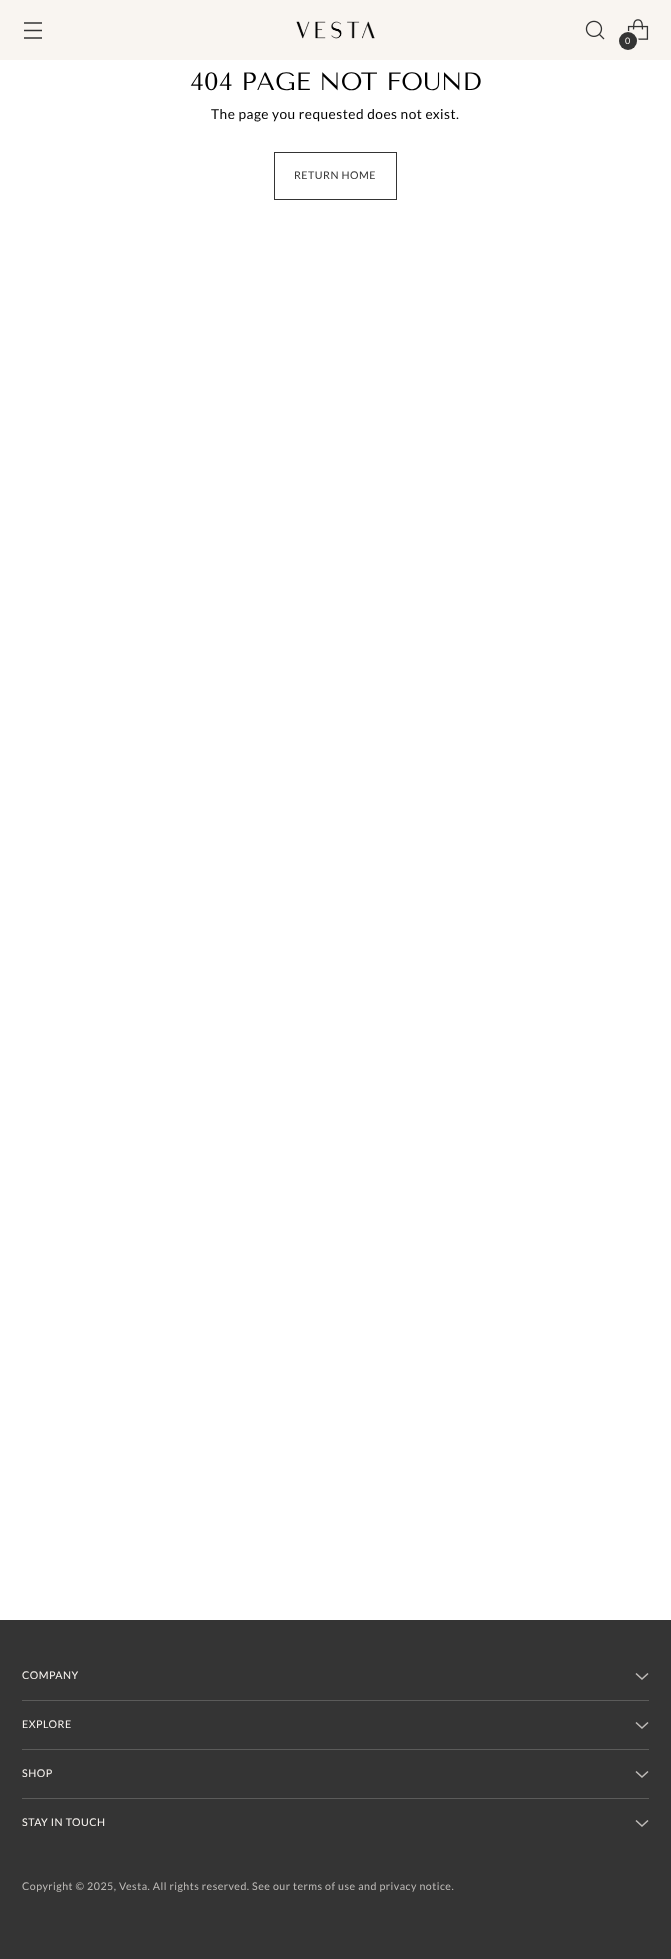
<svg xmlns="http://www.w3.org/2000/svg" width="671" height="1959" viewBox="0 0 671 1959">
  <rect width="100%" height="100%" fill="#ffffff"/>
  <rect x="0" y="0" width="671" height="60" fill="#f9f5f1"/>
  <path d="M24 30.5H42M24 23H42M24 38H42" fill="none" stroke="#343434" stroke-width="1.3"/>
  <image x="296" y="21" width="79" height="18" href="img1.png"/>
  <image x="585" y="20" width="20" height="20" href="img2.png"/>
  <image x="627" y="19" width="22" height="21" href="img3.png"/>
  <circle cx="628.5" cy="41.5" r="9.5" fill="none" stroke="#f9f5f1" stroke-width="2"/>
  <circle cx="628" cy="41" r="9" fill="#343434"/>
  <text x="625" y="44" font-family="Lato" font-size="9" letter-spacing="0.48" fill="#f9f5f1">0</text>
  <text x="190" y="90" font-family="Tenor Sans" font-size="25.1" fill="#000000">404 PAGE NOT FOUND</text>
  <text x="211" y="119" font-family="Lato" font-size="13.7" letter-spacing="0.48" fill="#000000">The page you requested does not exist.</text>
  <rect x="274.5" y="152.5" width="122" height="47" fill="none" stroke="#343434"/>
  <text x="294" y="179" font-family="Lato" font-size="10.65" letter-spacing="0.5" fill="#343434">RETURN HOME</text>
  <rect x="0" y="1620" width="671" height="339" fill="#343434"/>
  <rect x="22" y="1700" width="627" height="1" fill="#5b5b5a"/>
  <text x="22" y="1679" font-family="Lato" font-size="10.65" letter-spacing="0.5" fill="#f9f5f1">COMPANY</text>
  <path d="M636 1673.5L642 1679L648 1673.5M636 1722.5L642 1728L648 1722.5" fill="none" stroke="#bebbb8" stroke-width="1.6"/>
  <rect x="22" y="1749" width="627" height="1" fill="#5b5b5a"/>
  <text x="22" y="1728" font-family="Lato" font-size="10.65" letter-spacing="0.5" fill="#f9f5f1">EXPLORE</text>
  <rect x="22" y="1798" width="627" height="1" fill="#5b5b5a"/>
  <text x="22" y="1777" font-family="Lato" font-size="10.65" letter-spacing="0.5" fill="#f9f5f1">SHOP</text>
  <path d="M636 1771.5L642 1777L648 1771.5M636 1820.5L642 1826L648 1820.5" fill="none" stroke="#bebbb8" stroke-width="1.6"/>
  <text x="22" y="1826" font-family="Lato" font-size="10.65" letter-spacing="0.5" fill="#f9f5f1">STAY IN TOUCH</text>
  <text x="22" y="1890" font-family="Lato" font-size="10.65" letter-spacing="0.48" fill="#bebbb8">Copyright © 2025, Vesta. All rights reserved. See our terms of use and privacy notice.</text>
</svg>
